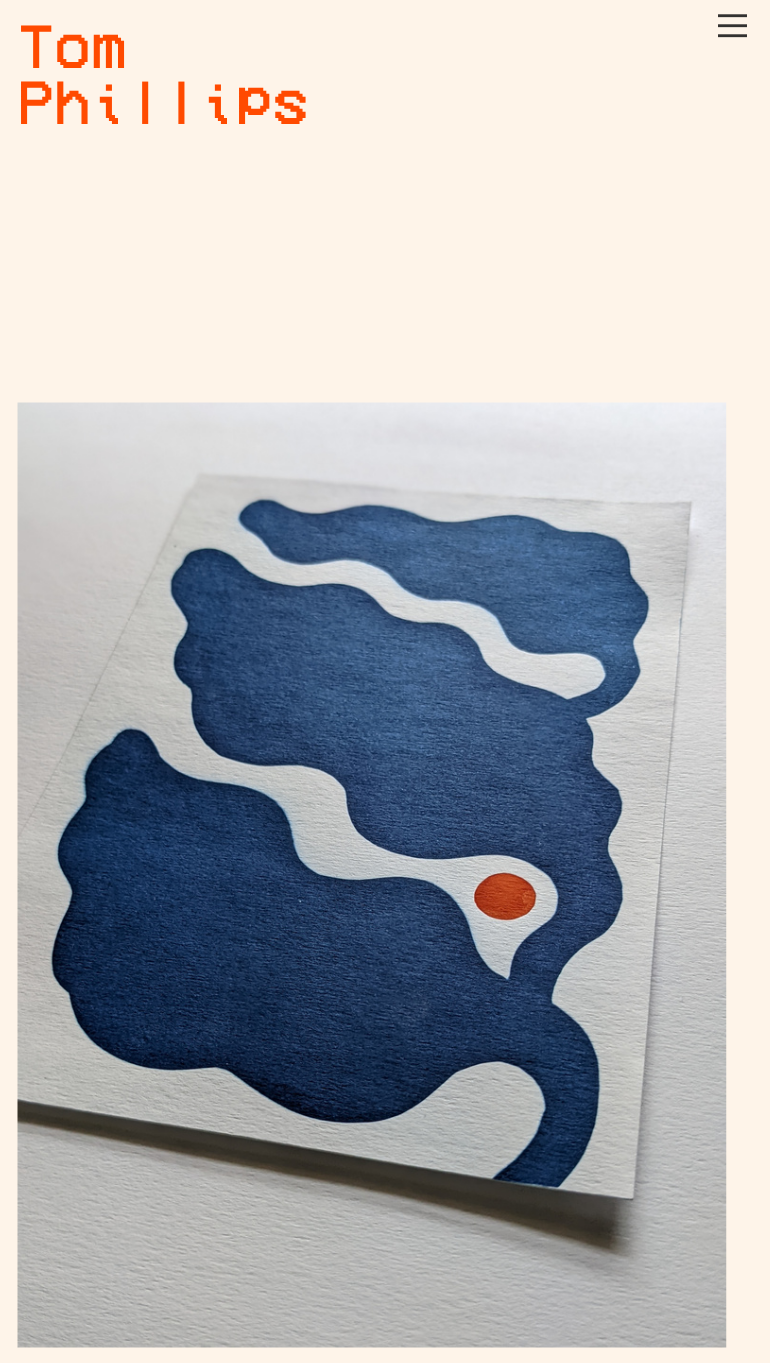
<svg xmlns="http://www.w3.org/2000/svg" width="770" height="1363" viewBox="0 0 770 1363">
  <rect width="100%" height="100%" fill="#fef4e9"/>
  <text x="18" y="71" font-family="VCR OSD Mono" font-size="62" fill="#ff4a00">Tom</text>
  <text x="18" y="127" font-family="VCR OSD Mono" font-size="62" fill="#ff4a00">Phillips</text>
  <image x="17" y="402" width="710" height="946" href="img1.png"/>
  <image x="718" y="14" width="29" height="24" href="img2.png"/>
</svg>
